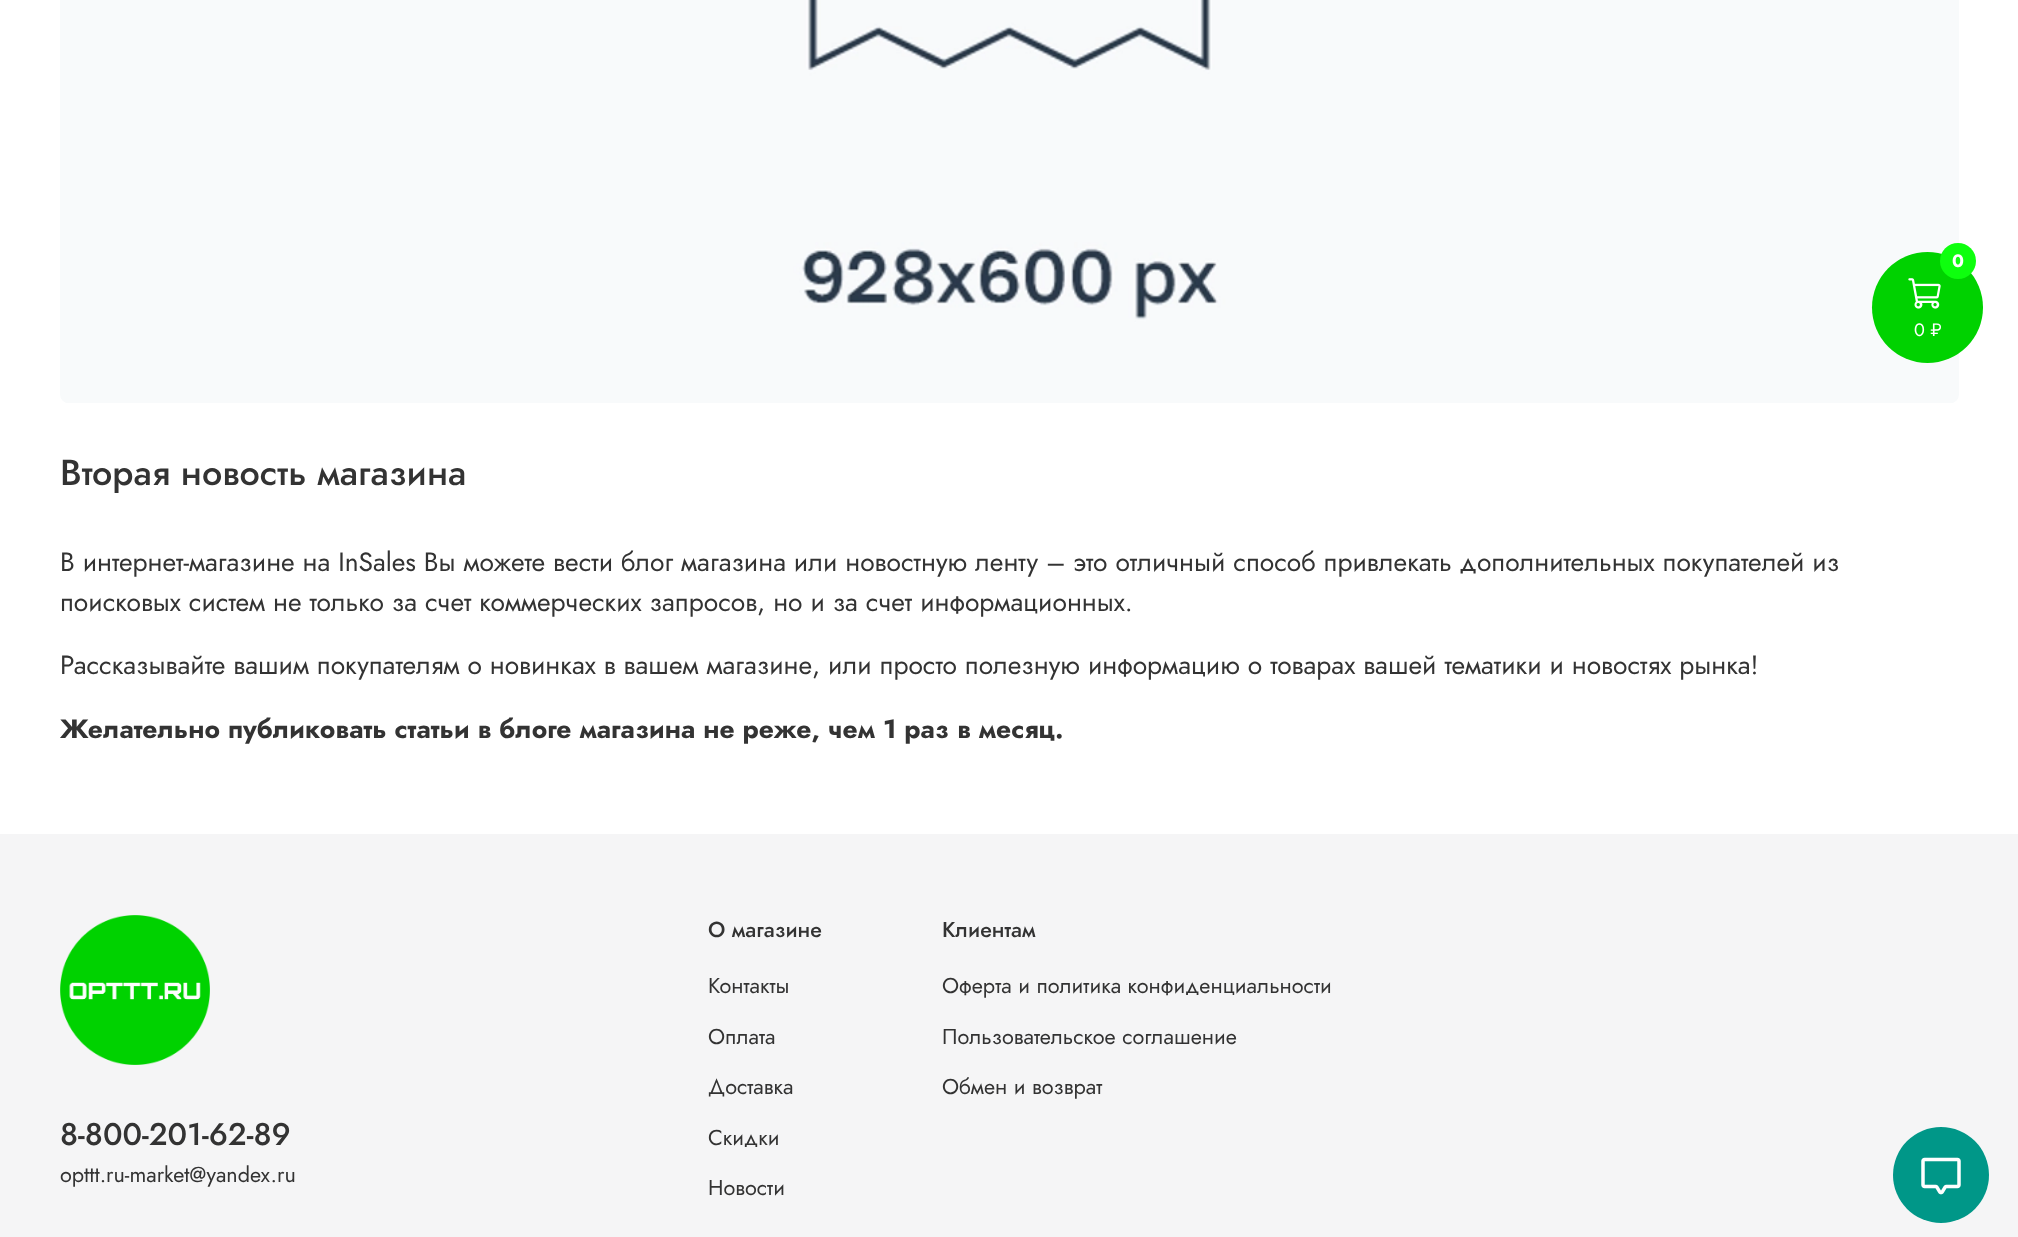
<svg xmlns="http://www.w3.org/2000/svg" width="2018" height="1237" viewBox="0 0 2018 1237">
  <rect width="100%" height="100%" fill="#ffffff"/>
  <image x="60" y="0" width="1899" height="403" href="img2.png"/>
  <circle cx="1927.5" cy="307.5" r="55.5" fill="#00d200"/>
  <image x="1908" y="278" width="33" height="31" href="img1.png"/>
  <circle cx="1958" cy="261" r="18" fill="#0eff0e"/>
  <text x="1952" y="267" font-family="Jost" font-size="18" font-weight="bold" fill="#ffffff">0</text>
  <text x="1914" y="336" font-family="Jost" font-size="18" fill="#ffffff">0 ₽</text>
  <text x="60" y="485" font-family="Jost" font-size="36" font-weight="500" fill="#333333">Вторая новость магазина</text>
  <text x="60" y="571" font-family="Jost" font-size="26.4" fill="#333333">В интернет-магазине на InSales Вы можете вести блог магазина или новостную ленту – это отличный способ привлекать дополнительных покупателей из</text>
  <text x="60" y="611" font-family="Jost" font-size="26.4" fill="#333333">поисковых систем не только за счет коммерческих запросов, но и за счет информационных.</text>
  <text x="60" y="674" font-family="Jost" font-size="26.4" fill="#333333">Рассказывайте вашим покупателям о новинках в вашем магазине, или просто полезную информацию о товарах вашей тематики и новостях рынка!</text>
  <text x="60" y="738" font-family="Jost" font-size="26.4" font-weight="bold" fill="#333333">Желательно публиковать статьи в блоге магазина не реже, чем 1 раз в месяц.</text>
  <rect x="0" y="834" width="2018" height="403" fill="#f5f5f6"/>
  <image x="60" y="915" width="150" height="150" href="img3.png"/>
  <text x="60" y="1145" font-family="Jost" font-size="31.25" font-weight="500" fill="#333333">8-800-201-62-89</text>
  <text x="60" y="1182" font-family="Jost" font-size="21.6" fill="#333333">opttt.ru-market@yandex.ru</text>
  <text x="708" y="937" font-family="Jost" font-size="21.6" font-weight="500" fill="#333333">О магазине</text>
  <text x="708" y="993" font-family="Jost" font-size="21.6" fill="#333333">Контакты</text>
  <text x="708" y="1044" font-family="Jost" font-size="21.6" fill="#333333">Оплата</text>
  <text x="708" y="1094" font-family="Jost" font-size="21.6" fill="#333333">Доставка</text>
  <text x="708" y="1145" font-family="Jost" font-size="21.6" fill="#333333">Скидки</text>
  <text x="708" y="1195" font-family="Jost" font-size="21.6" fill="#333333">Новости</text>
  <text x="942" y="937" font-family="Jost" font-size="21.6" font-weight="500" fill="#333333">Клиентам</text>
  <text x="942" y="993" font-family="Jost" font-size="21.6" fill="#333333">Оферта и политика конфиденциальности</text>
  <text x="942" y="1044" font-family="Jost" font-size="21.6" fill="#333333">Пользовательское соглашение</text>
  <text x="942" y="1094" font-family="Jost" font-size="21.6" fill="#333333">Обмен и возврат</text>
  <circle cx="1941" cy="1175" r="48" fill="#009788"/>
  <image x="1921" y="1157" width="40" height="38" href="img4.png"/>
</svg>
